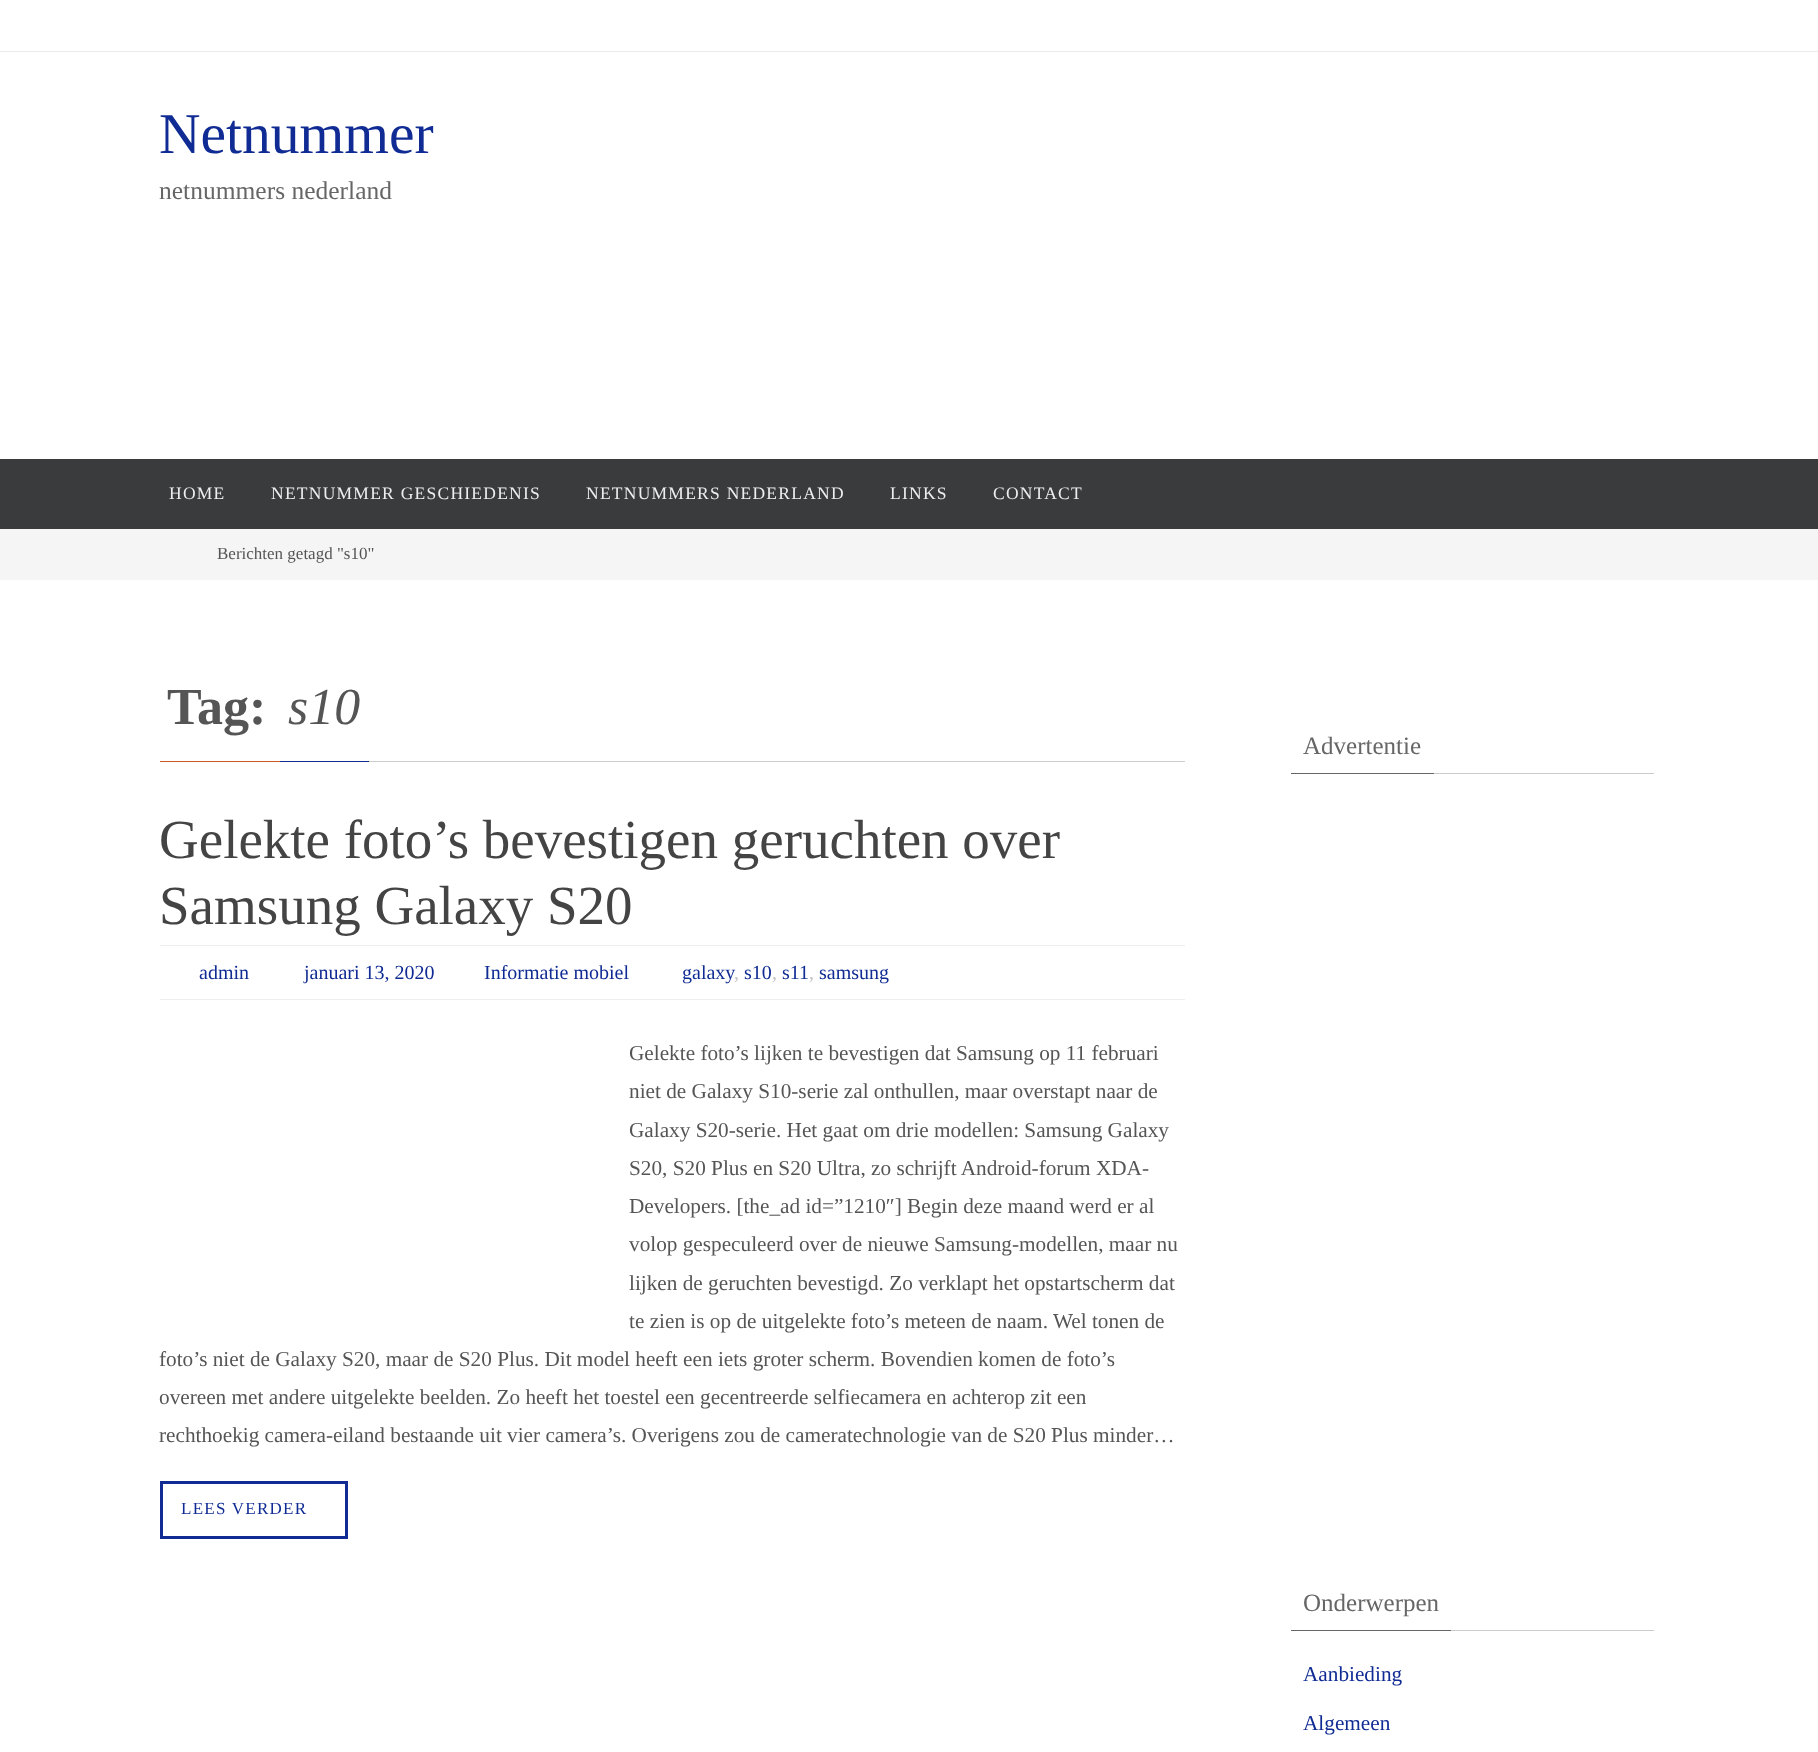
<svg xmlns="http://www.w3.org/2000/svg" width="1818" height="1752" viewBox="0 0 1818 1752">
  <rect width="100%" height="100%" fill="#ffffff"/>
  <rect x="0" y="51" width="1818" height="1" fill="#ebebeb"/>
  <text x="159" y="153" font-family="Liberation Serif" font-size="57.5" fill="#102c94">Netnummer</text>
  <text x="159" y="199" font-family="Liberation Serif" font-size="25.5" fill="#666666">netnummers nederland</text>
  <rect x="0" y="459" width="1818" height="70" fill="#3a3b3d"/>
  <text x="169" y="499" font-family="Liberation Serif" font-size="17.5" letter-spacing="1.25" fill="#eeeeee">HOME</text>
  <text x="271" y="499" font-family="Liberation Serif" font-size="17.5" letter-spacing="1.25" fill="#eeeeee">NETNUMMER GESCHIEDENIS</text>
  <text x="586" y="499" font-family="Liberation Serif" font-size="17.5" letter-spacing="1.25" fill="#eeeeee">NETNUMMERS NEDERLAND</text>
  <text x="890" y="499" font-family="Liberation Serif" font-size="17.5" letter-spacing="1.25" fill="#eeeeee">LINKS</text>
  <text x="993" y="499" font-family="Liberation Serif" font-size="17.5" letter-spacing="1.25" fill="#eeeeee">CONTACT</text>
  <rect x="0" y="529" width="1818" height="51" fill="#f5f5f5"/>
  <text x="217" y="559" font-family="Liberation Serif" font-size="17" fill="#555555">Berichten getagd "s10"</text>
  <rect x="369" y="761" width="816" height="1" fill="#cccccc"/>
  <rect x="160" y="761" width="120" height="1" fill="#cb5920"/>
  <text x="167" y="724" font-family="Liberation Serif" font-size="52" font-weight="bold" fill="#555555">Tag:</text>
  <rect x="280" y="761" width="89" height="1" fill="#102c94"/>
  <text x="288" y="724" font-family="Liberation Serif" font-size="52" font-style="italic" fill="#555555">s10</text>
  <text x="159" y="858" font-family="Liberation Serif" font-size="55" fill="#444444">Gelekte foto’s bevestigen geruchten over</text>
  <text x="159" y="924" font-family="Liberation Serif" font-size="55" fill="#444444">Samsung Galaxy S20</text>
  <rect x="160" y="945" width="1025" height="1" fill="#eeeeee"/>
  <rect x="160" y="999" width="1025" height="1" fill="#eeeeee"/>
  <text x="199" y="979" font-family="Liberation Serif" font-size="20" fill="#102c94">admin</text>
  <text x="304" y="979" font-family="Liberation Serif" font-size="20" fill="#102c94">januari 13, 2020</text>
  <text x="484" y="979" font-family="Liberation Serif" font-size="20" fill="#102c94">Informatie mobiel</text>
  <text x="682" y="979" font-family="Liberation Serif" font-size="20" fill="#102c94">galaxy</text>
  <text x="744" y="979" font-family="Liberation Serif" font-size="20" fill="#102c94">s10</text>
  <text x="782" y="979" font-family="Liberation Serif" font-size="20" fill="#102c94">s11</text>
  <text x="819" y="979" font-family="Liberation Serif" font-size="20" fill="#102c94">samsung</text>
  <text x="734" y="979" font-family="Liberation Serif" font-size="20" fill="#c1c1c1">,</text>
  <text x="772" y="979" font-family="Liberation Serif" font-size="20" fill="#c1c1c1">,</text>
  <text x="809" y="979" font-family="Liberation Serif" font-size="20" fill="#c1c1c1">,</text>
  <text x="629" y="1060" font-family="Liberation Serif" font-size="21.25" fill="#555555">Gelekte foto’s lijken te bevestigen dat Samsung op 11 februari</text>
  <text x="629" y="1098" font-family="Liberation Serif" font-size="21.25" fill="#555555">niet de Galaxy S10-serie zal onthullen, maar overstapt naar de</text>
  <text x="629" y="1137" font-family="Liberation Serif" font-size="21.25" fill="#555555">Galaxy S20-serie. Het gaat om drie modellen: Samsung Galaxy</text>
  <text x="629" y="1175" font-family="Liberation Serif" font-size="21.25" fill="#555555">S20, S20 Plus en S20 Ultra, zo schrijft Android-forum XDA-</text>
  <text x="629" y="1213" font-family="Liberation Serif" font-size="21.25" fill="#555555">Developers. [the_ad id=”1210″] Begin deze maand werd er al</text>
  <text x="629" y="1251" font-family="Liberation Serif" font-size="21.25" fill="#555555">volop gespeculeerd over de nieuwe Samsung-modellen, maar nu</text>
  <text x="629" y="1290" font-family="Liberation Serif" font-size="21.25" fill="#555555">lijken de geruchten bevestigd. Zo verklapt het opstartscherm dat</text>
  <text x="629" y="1328" font-family="Liberation Serif" font-size="21.25" fill="#555555">te zien is op de uitgelekte foto’s meteen de naam. Wel tonen de</text>
  <text x="159" y="1366" font-family="Liberation Serif" font-size="21.25" fill="#555555">foto’s niet de Galaxy S20, maar de S20 Plus. Dit model heeft een iets groter scherm. Bovendien komen de foto’s</text>
  <text x="159" y="1404" font-family="Liberation Serif" font-size="21.25" fill="#555555">overeen met andere uitgelekte beelden. Zo heeft het toestel een gecentreerde selfiecamera en achterop zit een</text>
  <text x="159" y="1442" font-family="Liberation Serif" font-size="21.25" fill="#555555">rechthoekig camera-eiland bestaande uit vier camera’s. Overigens zou de cameratechnologie van de S20 Plus minder…</text>
  <rect x="161.5" y="1482.5" width="185" height="55" fill="none" stroke="#102c94" stroke-width="3"/>
  <text x="181" y="1514" font-family="Liberation Serif" font-size="17" letter-spacing="1.25" fill="#102c94">LEES VERDER</text>
  <rect x="1434" y="773" width="220" height="1" fill="#cccccc"/>
  <rect x="1291" y="773" width="143" height="1" fill="#666666"/>
  <text x="1303" y="754" font-family="Liberation Serif" font-size="25" fill="#666666">Advertentie</text>
  <rect x="1451" y="1630" width="203" height="1" fill="#cccccc"/>
  <rect x="1291" y="1630" width="160" height="1" fill="#666666"/>
  <text x="1303" y="1611" font-family="Liberation Serif" font-size="25" fill="#666666">Onderwerpen</text>
  <text x="1303" y="1681" font-family="Liberation Serif" font-size="21.25" fill="#102c94">Aanbieding</text>
  <text x="1303" y="1730" font-family="Liberation Serif" font-size="21.25" fill="#102c94">Algemeen</text>
</svg>
